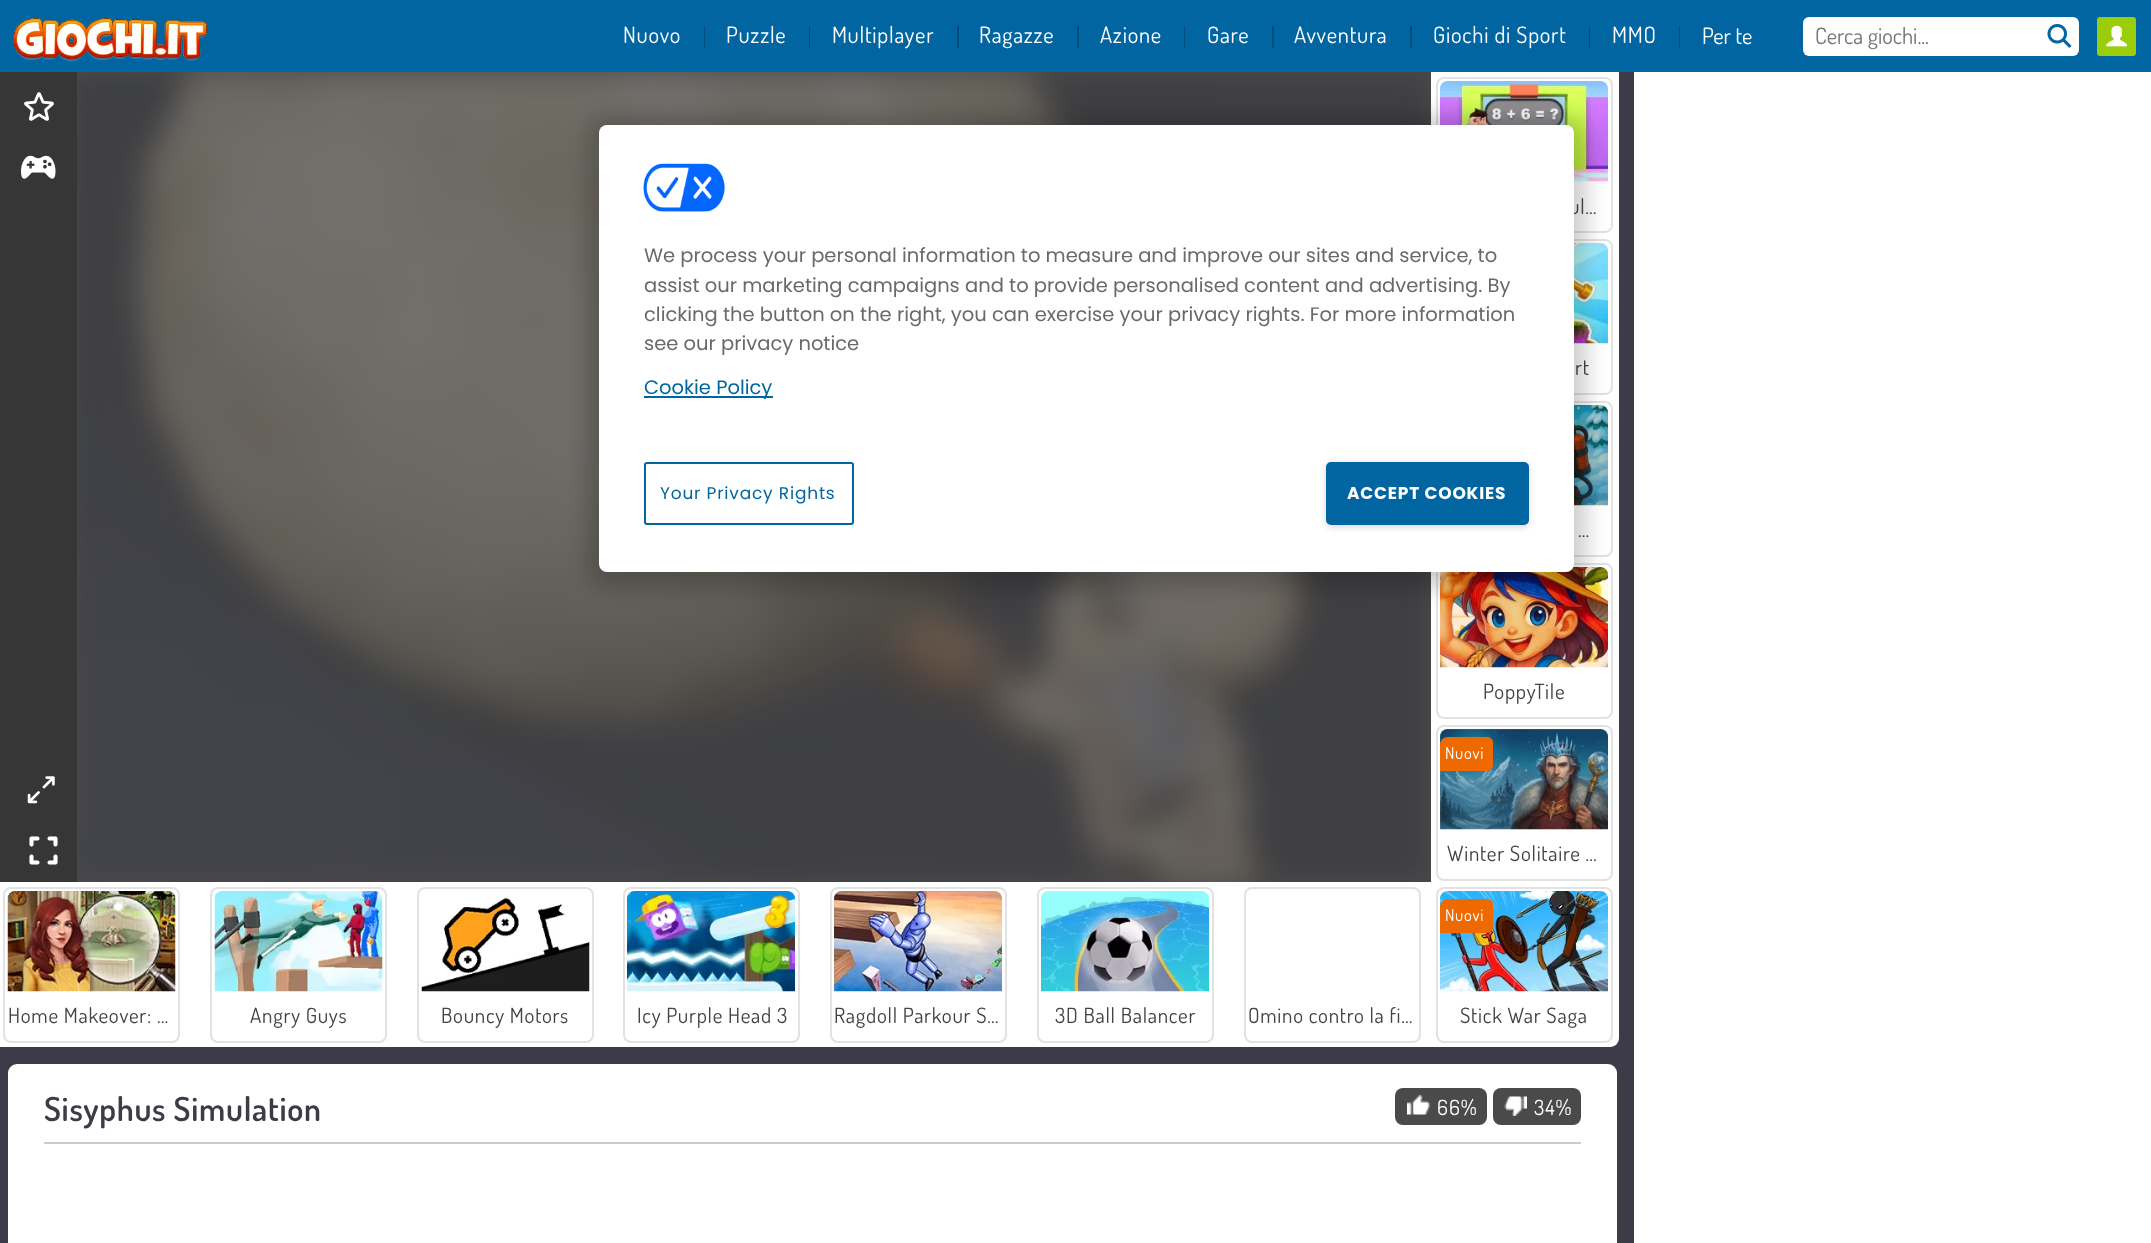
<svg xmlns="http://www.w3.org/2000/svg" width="2151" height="1243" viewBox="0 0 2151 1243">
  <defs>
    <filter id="blur1" x="-50%" y="-200%" width="200%" height="500%"><feGaussianBlur stdDeviation="11"/></filter>
    <filter id="blur2" x="-50%" y="-200%" width="200%" height="500%"><feGaussianBlur stdDeviation="3"/></filter>
  </defs>
  <rect width="100%" height="100%" fill="#3c3b47"/>
  <rect x="0" y="0" width="2151" height="72" fill="#0065a0"/>
  <image x="13" y="18" width="194" height="44" href="img1.png"/>
  <text x="623" y="43" font-family="Dosis" font-size="22.5" letter-spacing="0.75" fill="#ffffff">Nuovo</text>
  <rect x="704" y="26" width="1" height="22" fill="#014c78"/>
  <text x="726" y="43" font-family="Dosis" font-size="22.5" letter-spacing="0.75" fill="#ffffff">Puzzle</text>
  <rect x="809" y="26" width="1" height="22" fill="#014c78"/>
  <text x="832" y="43" font-family="Dosis" font-size="22.5" letter-spacing="0.75" fill="#ffffff">Multiplayer</text>
  <rect x="957" y="26" width="2" height="22" fill="#014c78"/>
  <text x="979" y="43" font-family="Dosis" font-size="22.5" letter-spacing="0.75" fill="#ffffff">Ragazze</text>
  <rect x="1077" y="26" width="2" height="22" fill="#014c78"/>
  <text x="1100" y="43" font-family="Dosis" font-size="22.5" letter-spacing="0.75" fill="#ffffff">Azione</text>
  <rect x="1184" y="26" width="1" height="22" fill="#014c78"/>
  <text x="1207" y="43" font-family="Dosis" font-size="22.5" letter-spacing="0.75" fill="#ffffff">Gare</text>
  <rect x="1272" y="26" width="2" height="22" fill="#014c78"/>
  <text x="1294" y="43" font-family="Dosis" font-size="22.5" letter-spacing="0.75" fill="#ffffff">Avventura</text>
  <rect x="1410" y="26" width="2" height="22" fill="#014c78"/>
  <text x="1433" y="43" font-family="Dosis" font-size="22.5" letter-spacing="0.75" fill="#ffffff">Giochi di Sport</text>
  <rect x="1589" y="26" width="1" height="22" fill="#014c78"/>
  <text x="1612" y="43" font-family="Dosis" font-size="22.5" letter-spacing="0.75" fill="#ffffff">MMO</text>
  <rect x="1679" y="26" width="1" height="22" fill="#014c78"/>
  <text x="1702" y="44" font-family="Dosis" font-size="22.5" fill="#ffffff">Per te</text>
  <rect x="2097" y="17" width="39" height="39" rx="3" fill="#9ace0a"/>
  <image x="2106" y="25" width="21" height="22" href="img2.png"/>
  <rect x="1803" y="17" width="276" height="39" rx="6" fill="#ffffff"/>
  <text x="1815" y="44" font-family="Dosis" font-size="22.5" fill="#757575">Cerca giochi...</text>
  <image x="2047" y="24" width="25" height="24" href="img3.png"/>
  <rect x="0" y="882" width="1431" height="165" fill="#ffffff"/>
  <rect x="0" y="72" width="77" height="810" fill="#363636"/>
  <image x="24" y="92" width="30" height="29" href="img4.png"/>
  <image x="21" y="155" width="35" height="24" href="img5.png"/>
  <image x="27" y="776" width="28" height="28" href="img6.png"/>
  <image x="29" y="836" width="29" height="29" href="img7.png"/>
  <rect x="77" y="72" width="1354" height="810" fill="#4c4c4c"/>
  <image x="77" y="72" width="1354" height="810" href="img8.png"/>
  <path d="M1431 72H1619V1038C1619 1043 1615 1047 1610 1047H1431Z" fill="#ffffff"/>
  <rect x="1437" y="78" width="175" height="154" rx="7" fill="none" stroke="#e2e2e2" stroke-width="2"/>
  <image x="1440" y="81" width="168" height="101" href="img9.png"/>
  <text x="1569" y="214" font-family="Dosis" font-size="21" letter-spacing="0.75" fill="#434343">ul…</text>
  <rect x="1437" y="240" width="175" height="154" rx="7" fill="none" stroke="#e2e2e2" stroke-width="2"/>
  <image x="1574" y="243" width="34" height="101" href="img10.png"/>
  <text x="1575" y="375" font-family="Dosis" font-size="21" letter-spacing="0.75" fill="#434343">rt</text>
  <rect x="1437" y="402" width="175" height="154" rx="7" fill="none" stroke="#e2e2e2" stroke-width="2"/>
  <image x="1574" y="405" width="34" height="101" href="img11.png"/>
  <text x="1578" y="537" font-family="Dosis" font-size="21" letter-spacing="0.75" fill="#434343">…</text>
  <rect x="1437" y="564" width="175" height="154" rx="7" fill="none" stroke="#e2e2e2" stroke-width="2"/>
  <image x="1440" y="567" width="168" height="101" href="img12.png"/>
  <text x="1483" y="699" font-family="Dosis" font-size="21" letter-spacing="0.75" fill="#434343">PoppyTile</text>
  <rect x="1437" y="726" width="175" height="154" rx="7" fill="none" stroke="#e2e2e2" stroke-width="2"/>
  <image x="1440" y="729" width="168" height="101" href="img13.png"/>
  <path d="M1448 737H1487C1490.5 737 1493 739.5 1493 743V765C1493 768.5 1490.5 771 1487 771H1440V745C1440 740.5 1443.5 737 1448 737Z" fill="#ee6900"/>
  <text x="1445" y="759" font-family="Dosis" font-size="16.5" letter-spacing="0.75" fill="#ffffff">Nuovi</text>
  <text x="1447" y="861" font-family="Dosis" font-size="21" letter-spacing="0.75" fill="#434343">Winter Solitaire …</text>
  <rect x="1437" y="888" width="175" height="154" rx="7" fill="none" stroke="#e2e2e2" stroke-width="2"/>
  <image x="1440" y="891" width="168" height="101" href="img14.png"/>
  <path d="M1448 899H1487C1490.5 899 1493 901.5 1493 905V927C1493 930.5 1490.5 933 1487 933H1440V907C1440 902.5 1443.5 899 1448 899Z" fill="#ee6900"/>
  <text x="1445" y="921" font-family="Dosis" font-size="16.5" letter-spacing="0.75" fill="#ffffff">Nuovi</text>
  <text x="1460" y="1023" font-family="Dosis" font-size="21" letter-spacing="0.75" fill="#434343">Stick War Saga</text>
  <rect x="4" y="888" width="175" height="154" rx="7" fill="none" stroke="#e2e2e2" stroke-width="2"/>
  <image x="7" y="891" width="169" height="101" href="img15.png"/>
  <text x="8" y="1023" font-family="Dosis" font-size="21" letter-spacing="0.75" fill="#434343">Home Makeover: …</text>
  <rect x="211" y="888" width="175" height="154" rx="7" fill="none" stroke="#e2e2e2" stroke-width="2"/>
  <image x="214" y="891" width="169" height="101" href="img16.png"/>
  <text x="250" y="1023" font-family="Dosis" font-size="21" letter-spacing="0.75" fill="#434343">Angry Guys</text>
  <rect x="418" y="888" width="175" height="154" rx="7" fill="none" stroke="#e2e2e2" stroke-width="2"/>
  <image x="421" y="897" width="169" height="95" href="img17.png"/>
  <text x="441" y="1023" font-family="Dosis" font-size="21" letter-spacing="0.75" fill="#434343">Bouncy Motors</text>
  <rect x="624" y="888" width="175" height="154" rx="7" fill="none" stroke="#e2e2e2" stroke-width="2"/>
  <image x="627" y="891" width="168" height="101" href="img18.png"/>
  <text x="637" y="1023" font-family="Dosis" font-size="21" letter-spacing="0.75" fill="#434343">Icy Purple Head 3</text>
  <rect x="831" y="888" width="175" height="154" rx="7" fill="none" stroke="#e2e2e2" stroke-width="2"/>
  <image x="834" y="891" width="168" height="101" href="img19.png"/>
  <text x="834" y="1023" font-family="Dosis" font-size="21" letter-spacing="0.75" fill="#434343">Ragdoll Parkour S…</text>
  <rect x="1038" y="888" width="175" height="154" rx="7" fill="none" stroke="#e2e2e2" stroke-width="2"/>
  <image x="1041" y="891" width="168" height="101" href="img20.png"/>
  <text x="1055" y="1023" font-family="Dosis" font-size="21" letter-spacing="0.75" fill="#434343">3D Ball Balancer</text>
  <rect x="1245" y="888" width="175" height="154" rx="7" fill="none" stroke="#e2e2e2" stroke-width="2"/>
  <text x="1248" y="1023" font-family="Dosis" font-size="21" letter-spacing="0.75" fill="#434343">Omino contro la fi…</text>
  <rect x="8" y="1064" width="1609" height="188" rx="9" fill="#ffffff"/>
  <rect x="44" y="1142" width="1537" height="2" fill="#cccccc"/>
  <text x="44" y="1121" font-family="Dosis" font-size="33" font-weight="600" letter-spacing="0.75" fill="#3c3b47">Sisyphus Simulation</text>
  <rect x="1395" y="1088" width="92" height="37" rx="8" fill="#4a4a4a"/>
  <image x="1407" y="1095" width="23" height="20" href="img21.png"/>
  <text x="1437" y="1115" font-family="Dosis" font-size="21" letter-spacing="1" fill="#ffffff">66%</text>
  <rect x="1493" y="1088" width="88" height="37" rx="8" fill="#4a4a4a"/>
  <image x="1504" y="1096" width="23" height="20" href="img22.png"/>
  <text x="1534" y="1115" font-family="Dosis" font-size="21" letter-spacing="1" fill="#ffffff">34%</text>
  <rect x="1634" y="72" width="517" height="1171" fill="#ffffff"/>
  <rect x="587" y="116" width="999" height="471" rx="20" fill="#000000" fill-opacity="0.2" filter="url(#blur1)"/>
  <rect x="599" y="125" width="975" height="447" rx="8" fill="#ffffff"/>
  <image x="643" y="163" width="82" height="49" href="img23.png"/>
  <text x="644" y="262" font-family="Poppins" font-size="19.5" fill="#696969">We process your personal information to measure and improve our sites and service, to</text>
  <text x="644" y="292" font-family="Poppins" font-size="19.5" fill="#696969">assist our marketing campaigns and to provide personalised content and advertising. By</text>
  <text x="644" y="321" font-family="Poppins" font-size="19.5" fill="#696969">clicking the button on the right, you can exercise your privacy rights. For more information</text>
  <text x="644" y="350" font-family="Poppins" font-size="19.5" fill="#696969">see our privacy notice</text>
  <rect x="644" y="396" width="129" height="2" fill="#0065a0"/>
  <text x="644" y="394" font-family="Poppins" font-size="19.5" fill="#0065a0">Cookie Policy</text>
  <rect x="645" y="463" width="208" height="61" rx="2" fill="none" stroke="#0065a0" stroke-width="2"/>
  <text x="660" y="499" font-family="Poppins" font-size="17" letter-spacing="0.8" fill="#0065a0">Your Privacy Rights</text>
  <rect x="1326" y="464" width="203" height="63" rx="5" fill="#000000" fill-opacity="0.16" filter="url(#blur2)"/>
  <rect x="1327" y="463" width="201" height="61" rx="4" fill="#0065a0" stroke="#0065a0" stroke-width="2"/>
  <text x="1347" y="499" font-family="Poppins" font-size="17" font-weight="bold" letter-spacing="0.8" fill="#ffffff">ACCEPT COOKIES</text>
</svg>
